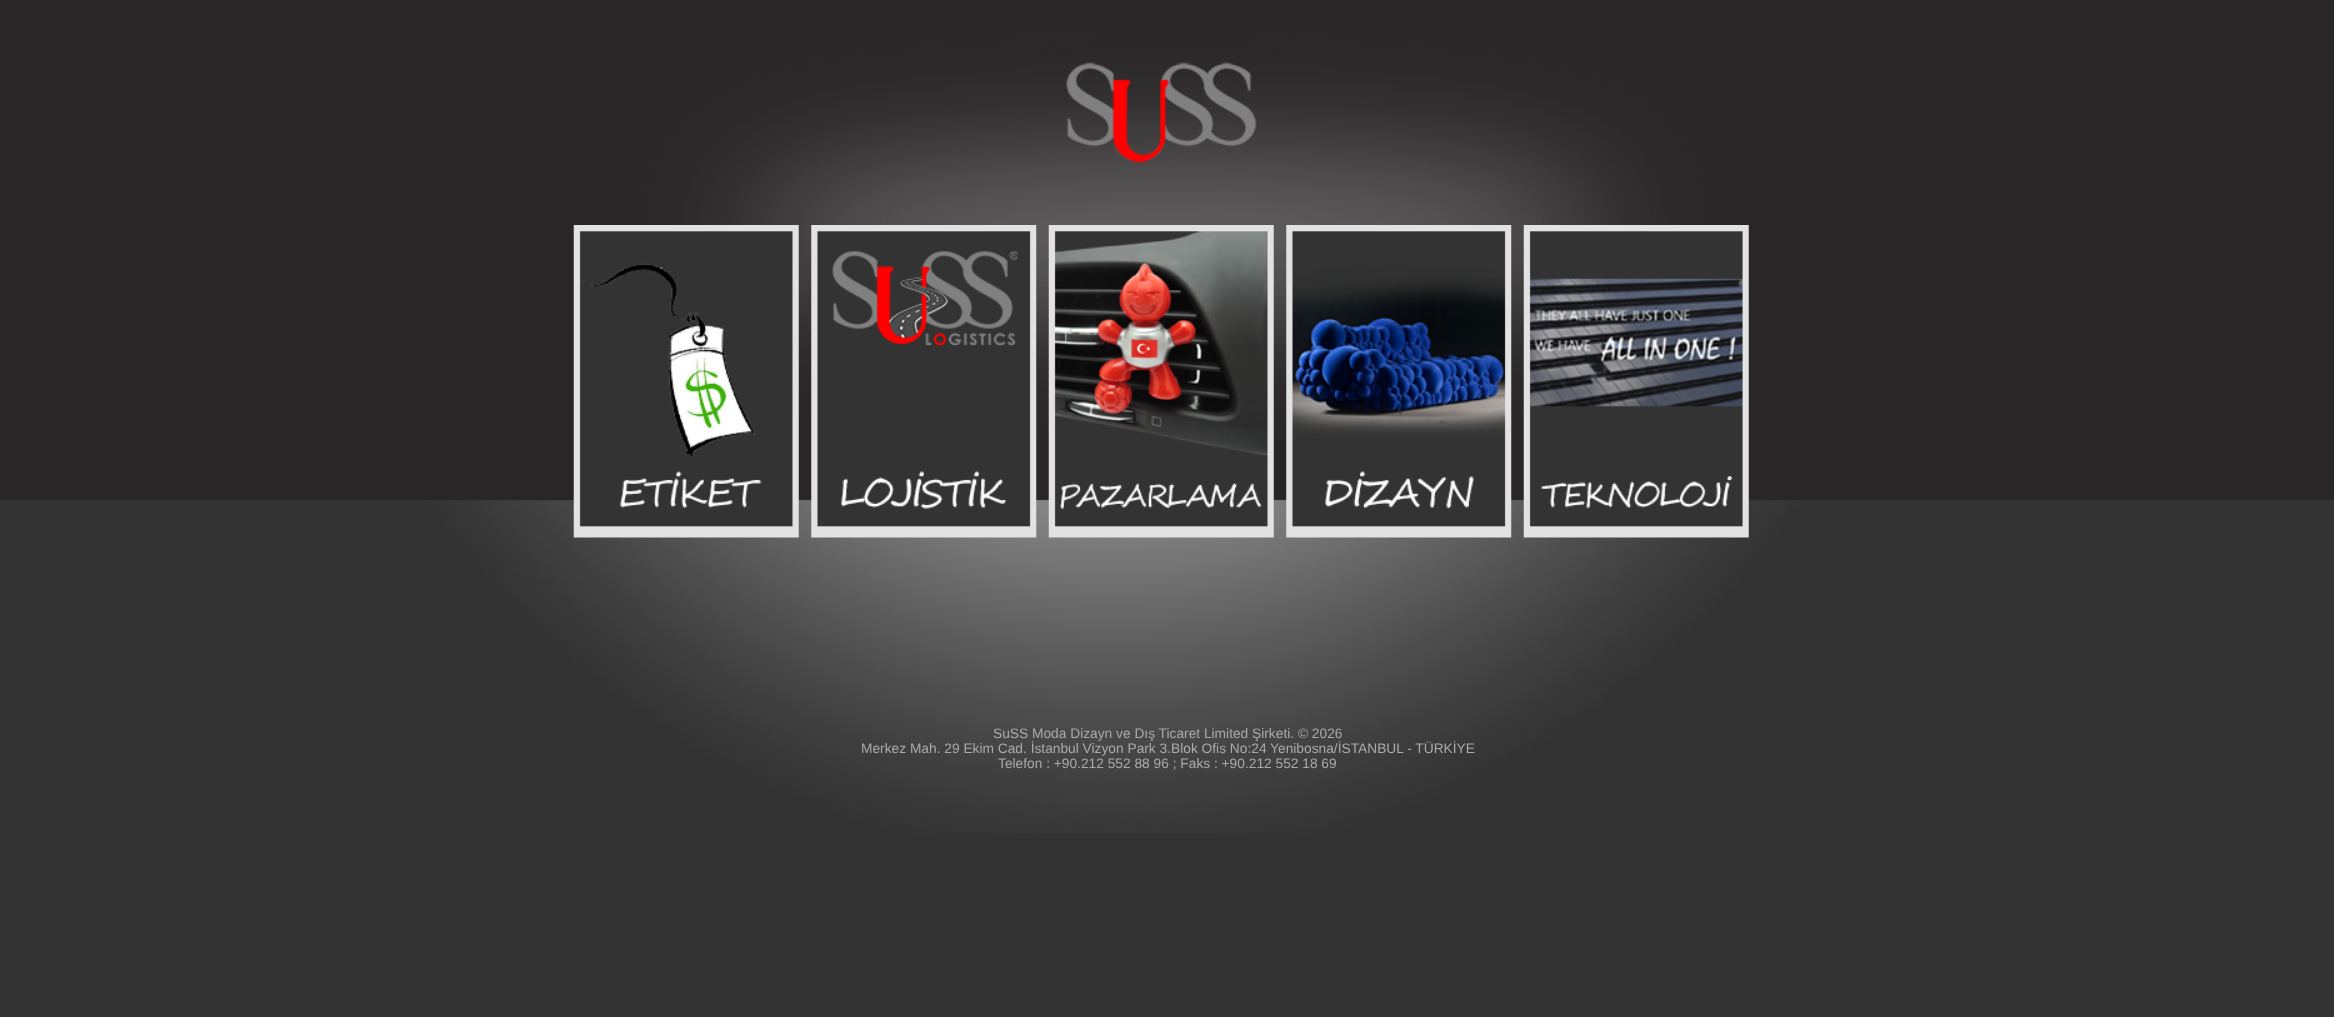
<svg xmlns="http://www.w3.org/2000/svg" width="2334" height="1017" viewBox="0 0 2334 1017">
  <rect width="100%" height="100%" fill="#333333"/>
  <image x="0" y="0" width="2334" height="834" href="img1.png"/>
  <image x="1066" y="62" width="191" height="101" href="img2.png"/>
  <image x="573" y="225" width="226" height="313" href="img3.png"/>
  <image x="811" y="225" width="226" height="313" href="img4.png"/>
  <image x="1048" y="225" width="226" height="313" href="img5.png"/>
  <image x="1286" y="225" width="226" height="313" href="img6.png"/>
  <image x="1523" y="225" width="226" height="313" href="img7.png"/>
  <text x="993" y="738" font-family="Liberation Sans" font-size="13.75" fill="#aaaaaa">SuSS Moda Dizayn ve Dış Ticaret Limited Şirketi. © 2026</text>
  <text x="861" y="753" font-family="Liberation Sans" font-size="13.75" fill="#aaaaaa">Merkez Mah. 29 Ekim Cad. İstanbul Vizyon Park 3.Blok Ofis No:24 Yenibosna/İSTANBUL - TÜRKİYE</text>
  <text x="998" y="768" font-family="Liberation Sans" font-size="13.75" fill="#aaaaaa">Telefon : +90.212 552 88 96 ; Faks : +90.212 552 18 69</text>
</svg>
